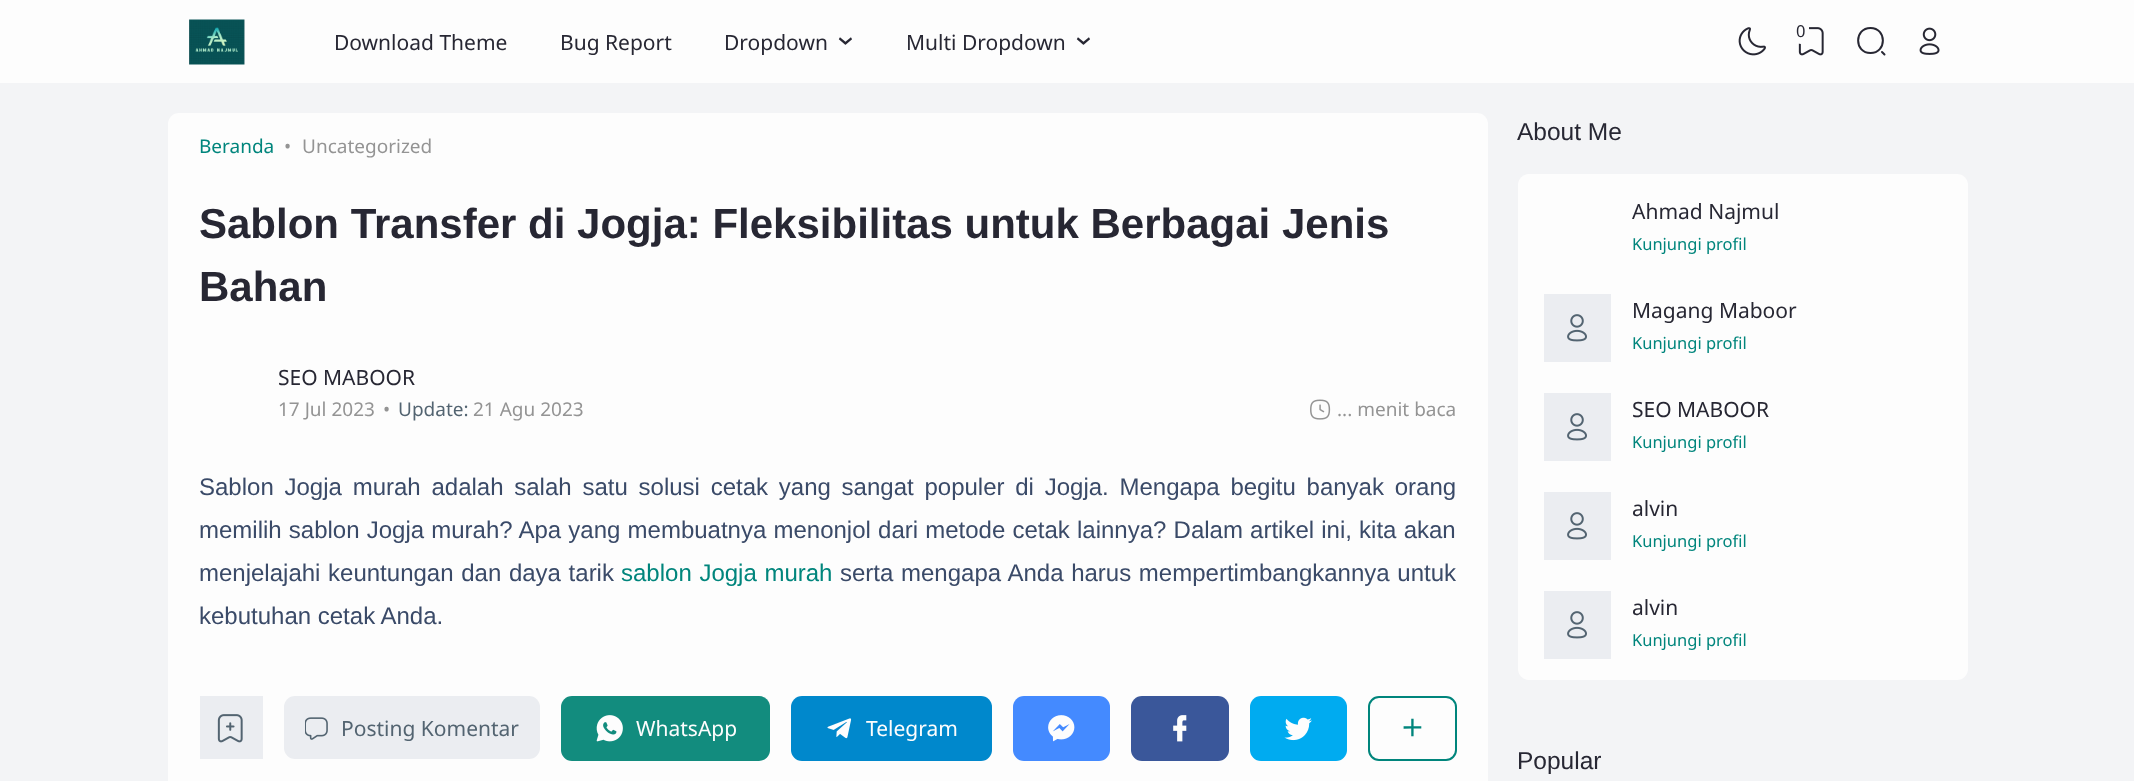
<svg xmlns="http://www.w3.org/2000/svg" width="2134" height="781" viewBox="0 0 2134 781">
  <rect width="100%" height="100%" fill="#f3f4f6"/>
  <rect x="0" y="0" width="2134" height="83" fill="#fdfdfd"/>
  <image x="189" y="19" width="56" height="46" href="img1.png"/>
  <image x="1738" y="27" width="28" height="29" href="img2.png"/>
  <image x="1798" y="27" width="26" height="29" href="img3.png"/>
  <rect x="1793" y="18" width="16" height="26" rx="8" fill="#fdfdfd"/>
  <text x="1796" y="37" font-family="Noto Sans" font-size="16.5" fill="#272733">0</text>
  <path d="M1870.5 53C1887 53 1887 28 1870.5 28C1854 28 1854 53 1870.5 53ZM1884.5 54.5L1882 52" fill="none" stroke="#272733" stroke-width="2" stroke-linecap="round" stroke-linejoin="round"/>
  <image x="1919" y="27" width="21" height="28" href="img4.png"/>
  <text x="334" y="50" font-family="Noto Sans" font-size="21" fill="#272733">Download Theme</text>
  <text x="560" y="50" font-family="Noto Sans" font-size="21" fill="#272733">Bug Report</text>
  <text x="724" y="50" font-family="Noto Sans" font-size="21" fill="#272733">Dropdown</text>
  <text x="837" y="36" transform="rotate(90 837 36)" font-family="Noto Sans" font-size="32" fill="#272733">›</text>
  <text x="906" y="50" font-family="Noto Sans" font-size="21" fill="#272733">Multi Dropdown</text>
  <text x="1075" y="36" transform="rotate(90 1075 36)" font-family="Noto Sans" font-size="32" fill="#272733">›</text>
  <rect x="168" y="113" width="1320" height="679" rx="11" fill="#fdfdfd"/>
  <text x="199" y="153" font-family="Noto Sans" font-size="19" fill="#00857c">Beranda</text>
  <text x="284" y="153" font-family="Noto Sans" font-size="19" fill="#949494">•</text>
  <text x="302" y="153" font-family="Noto Sans" font-size="19" fill="#949494">Uncategorized</text>
  <text x="199" y="238" font-family="Liberation Sans" font-size="42" font-weight="bold" fill="#272733">Sablon Transfer di Jogja: Fleksibilitas untuk Berbagai Jenis</text>
  <text x="199" y="301" font-family="Liberation Sans" font-size="42" font-weight="bold" fill="#272733">Bahan</text>
  <text x="278" y="385" font-family="Noto Sans" font-size="21" fill="#272733">SEO MABOOR</text>
  <text x="278" y="416" font-family="Noto Sans" font-size="19" fill="#949494">17 Jul 2023</text>
  <text x="383" y="416" font-family="Noto Sans" font-size="19" fill="#949494">•</text>
  <text x="398" y="416" font-family="Noto Sans" font-size="19" fill="#536471">Update:</text>
  <text x="473" y="416" font-family="Noto Sans" font-size="19" fill="#949494">21 Agu 2023</text>
  <image x="1310" y="399" width="21" height="21" href="img5.png"/>
  <text x="1337" y="416" font-family="Noto Sans" font-size="19" fill="#949494">... menit baca</text>
  <text x="199" y="495" word-spacing="4.1" font-family="Liberation Sans" font-size="24" fill="#3a4a68">Sablon Jogja murah adalah salah satu solusi cetak yang sangat populer di Jogja. Mengapa begitu banyak orang</text>
  <text x="199" y="538" word-spacing="0.5" font-family="Liberation Sans" font-size="24" fill="#3a4a68">memilih sablon Jogja murah? Apa yang membuatnya menonjol dari metode cetak lainnya? Dalam artikel ini, kita akan</text>
  <text x="199" y="581" word-spacing="1" font-family="Liberation Sans" font-size="24" fill="#3a4a68">menjelajahi keuntungan dan daya tarik</text>
  <text x="621" y="581" word-spacing="1" font-family="Liberation Sans" font-size="24" fill="#00857c">sablon Jogja murah</text>
  <text x="840" y="581" word-spacing="1" font-family="Liberation Sans" font-size="24" fill="#3a4a68">serta mengapa Anda harus mempertimbangkannya untuk</text>
  <text x="199" y="624" font-family="Liberation Sans" font-size="24" fill="#3a4a68">kebutuhan cetak Anda.</text>
  <rect x="200" y="696" width="63" height="63" fill="#ebedf1"/>
  <image x="217" y="714" width="26" height="29" href="img6.png"/>
  <rect x="284" y="696" width="256" height="63" rx="11" fill="#ebedf1"/>
  <image x="305" y="717" width="23" height="23" href="img7.png"/>
  <text x="341" y="736" font-family="Noto Sans" font-size="21" fill="#536471">Posting Komentar</text>
  <rect x="561" y="696" width="209" height="65" rx="11" fill="#128c7e"/>
  <image x="596" y="715" width="27" height="27" href="img8.png"/>
  <text x="636" y="736" font-family="Noto Sans" font-size="21" fill="#fdfdfd">WhatsApp</text>
  <rect x="791" y="696" width="201" height="65" rx="11" fill="#0088cc"/>
  <image x="827" y="718" width="25" height="21" href="img9.png"/>
  <text x="866" y="736" font-family="Noto Sans" font-size="21" fill="#fdfdfd">Telegram</text>
  <rect x="1013" y="696" width="97" height="65" rx="11" fill="#448aff"/>
  <image x="1048" y="715" width="27" height="27" href="img10.png"/>
  <rect x="1131" y="696" width="98" height="65" rx="11" fill="#3a579a"/>
  <image x="1173" y="715" width="14" height="27" href="img11.png"/>
  <rect x="1250" y="696" width="97" height="65" rx="11" fill="#00abf0"/>
  <image x="1284" y="717" width="28" height="24" href="img12.png"/>
  <rect x="1369" y="697" width="87" height="63" rx="10" fill="none" stroke="#00857c" stroke-width="2"/>
  <text x="1398" y="729" transform="rotate(45 1398 729)" font-family="Noto Sans" font-size="32" fill="#00857c">×</text>
  <text x="1517" y="140" font-family="Liberation Sans" font-size="24.5" fill="#272733">About Me</text>
  <rect x="1518" y="174" width="450" height="506" rx="11" fill="#fdfdfd"/>
  <text x="1632" y="219" font-family="Noto Sans" font-size="21" fill="#272733">Ahmad Najmul</text>
  <text x="1632" y="250" font-family="Noto Sans" font-size="16.5" fill="#00857c">Kunjungi profil</text>
  <rect x="1544" y="294" width="67" height="68" fill="#ebedf1"/>
  <image x="1567" y="314" width="20" height="28" href="img13.png"/>
  <text x="1632" y="318" font-family="Noto Sans" font-size="21" fill="#272733">Magang Maboor</text>
  <text x="1632" y="349" font-family="Noto Sans" font-size="16.5" fill="#00857c">Kunjungi profil</text>
  <rect x="1544" y="393" width="67" height="68" fill="#ebedf1"/>
  <image x="1567" y="413" width="20" height="28" href="img13.png"/>
  <text x="1632" y="417" font-family="Noto Sans" font-size="21" fill="#272733">SEO MABOOR</text>
  <text x="1632" y="448" font-family="Noto Sans" font-size="16.5" fill="#00857c">Kunjungi profil</text>
  <rect x="1544" y="492" width="67" height="68" fill="#ebedf1"/>
  <image x="1567" y="512" width="20" height="28" href="img13.png"/>
  <text x="1632" y="516" font-family="Noto Sans" font-size="21" fill="#272733">alvin</text>
  <text x="1632" y="547" font-family="Noto Sans" font-size="16.5" fill="#00857c">Kunjungi profil</text>
  <rect x="1544" y="591" width="67" height="68" fill="#ebedf1"/>
  <image x="1567" y="611" width="20" height="28" href="img13.png"/>
  <text x="1632" y="615" font-family="Noto Sans" font-size="21" fill="#272733">alvin</text>
  <text x="1632" y="646" font-family="Noto Sans" font-size="16.5" fill="#00857c">Kunjungi profil</text>
  <text x="1517" y="769" font-family="Liberation Sans" font-size="24.5" fill="#272733">Popular</text>
</svg>
